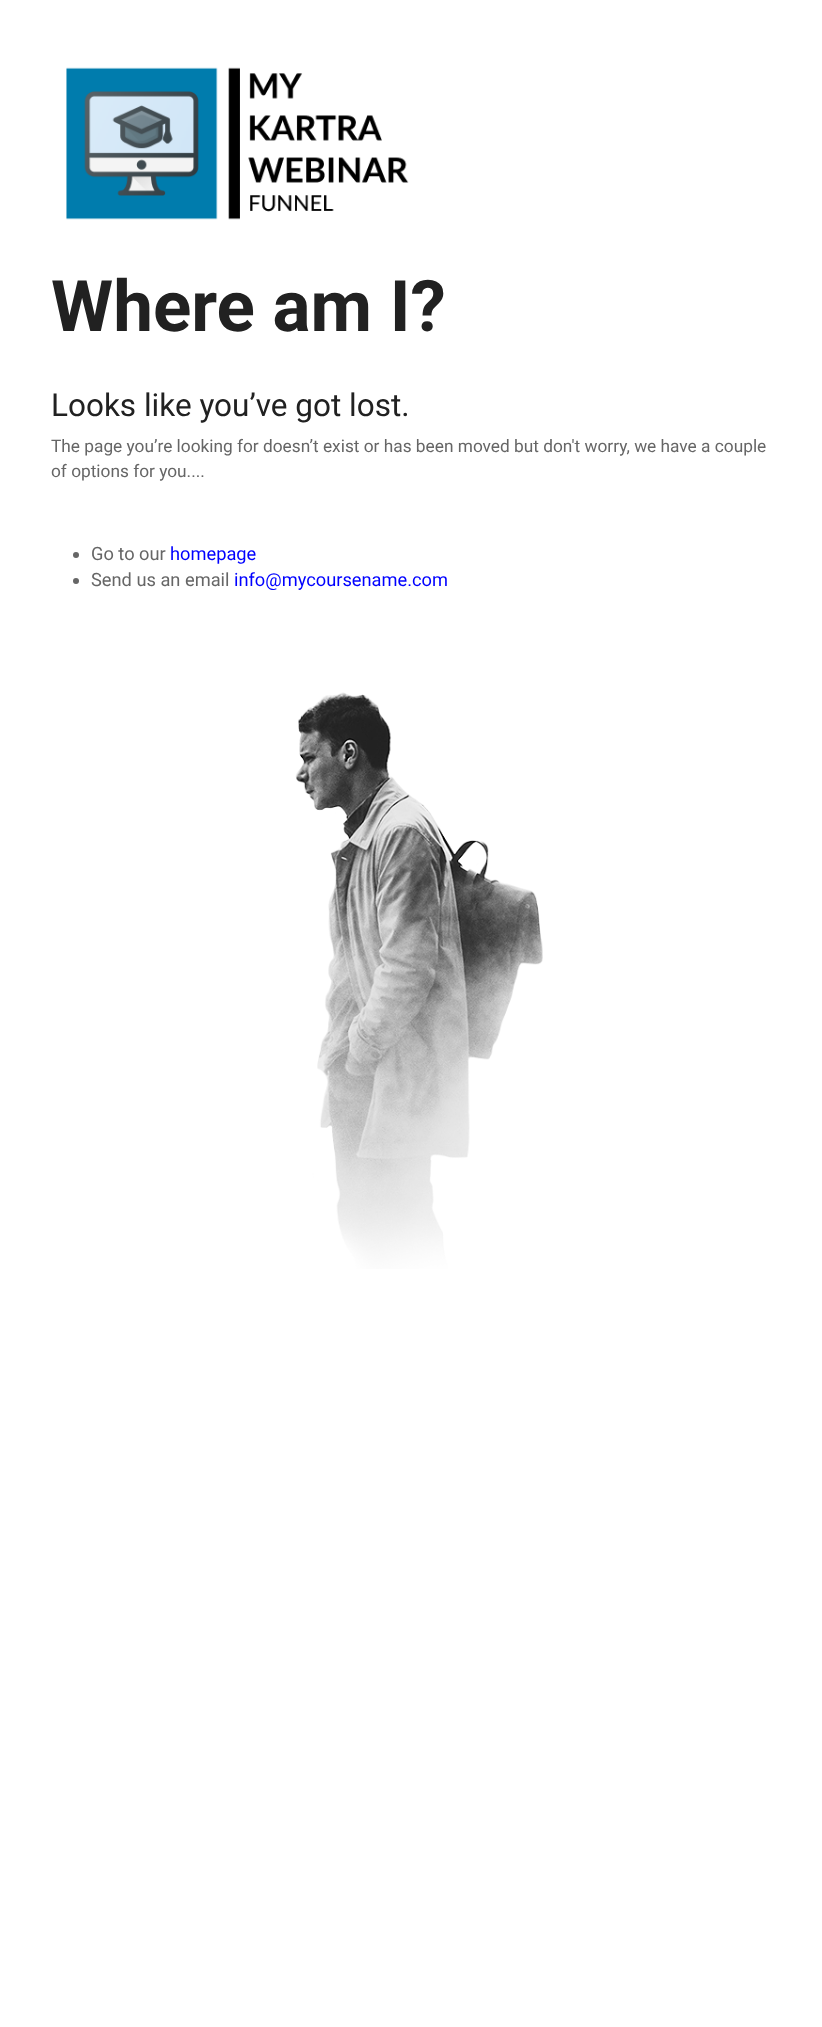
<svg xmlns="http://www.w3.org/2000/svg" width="822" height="2027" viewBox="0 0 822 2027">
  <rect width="100%" height="100%" fill="#ffffff"/>
  <image x="66" y="67" width="343" height="153" href="img1.png"/>
  <text x="51" y="331" font-family="Roboto" font-size="71" font-weight="bold" fill="#212121">Where am I?</text>
  <text x="51" y="416" font-family="Roboto" font-size="31.5" fill="#212121">Looks like you’ve got lost.</text>
  <text x="51" y="452" font-family="Roboto" font-size="17.3" fill="#666666">The page you’re looking for doesn’t exist or has been moved but don't worry, we have a couple</text>
  <text x="51" y="477" font-family="Roboto" font-size="17.3" fill="#666666">of options for you....</text>
  <circle cx="76" cy="555" r="3" fill="#666666"/>
  <text x="91" y="560" font-family="Roboto" font-size="18.25" fill="#666666">Go to our</text>
  <text x="170" y="560" font-family="Roboto" font-size="18.25" fill="#0000ff">homepage</text>
  <circle cx="76" cy="581" r="3" fill="#666666"/>
  <text x="91" y="586" font-family="Roboto" font-size="18.25" fill="#666666">Send us an email</text>
  <text x="234" y="586" font-family="Roboto" font-size="18.25" fill="#0000ff">info@mycoursename.com</text>
  <image x="295" y="692" width="248" height="577" href="img2.png"/>
</svg>
